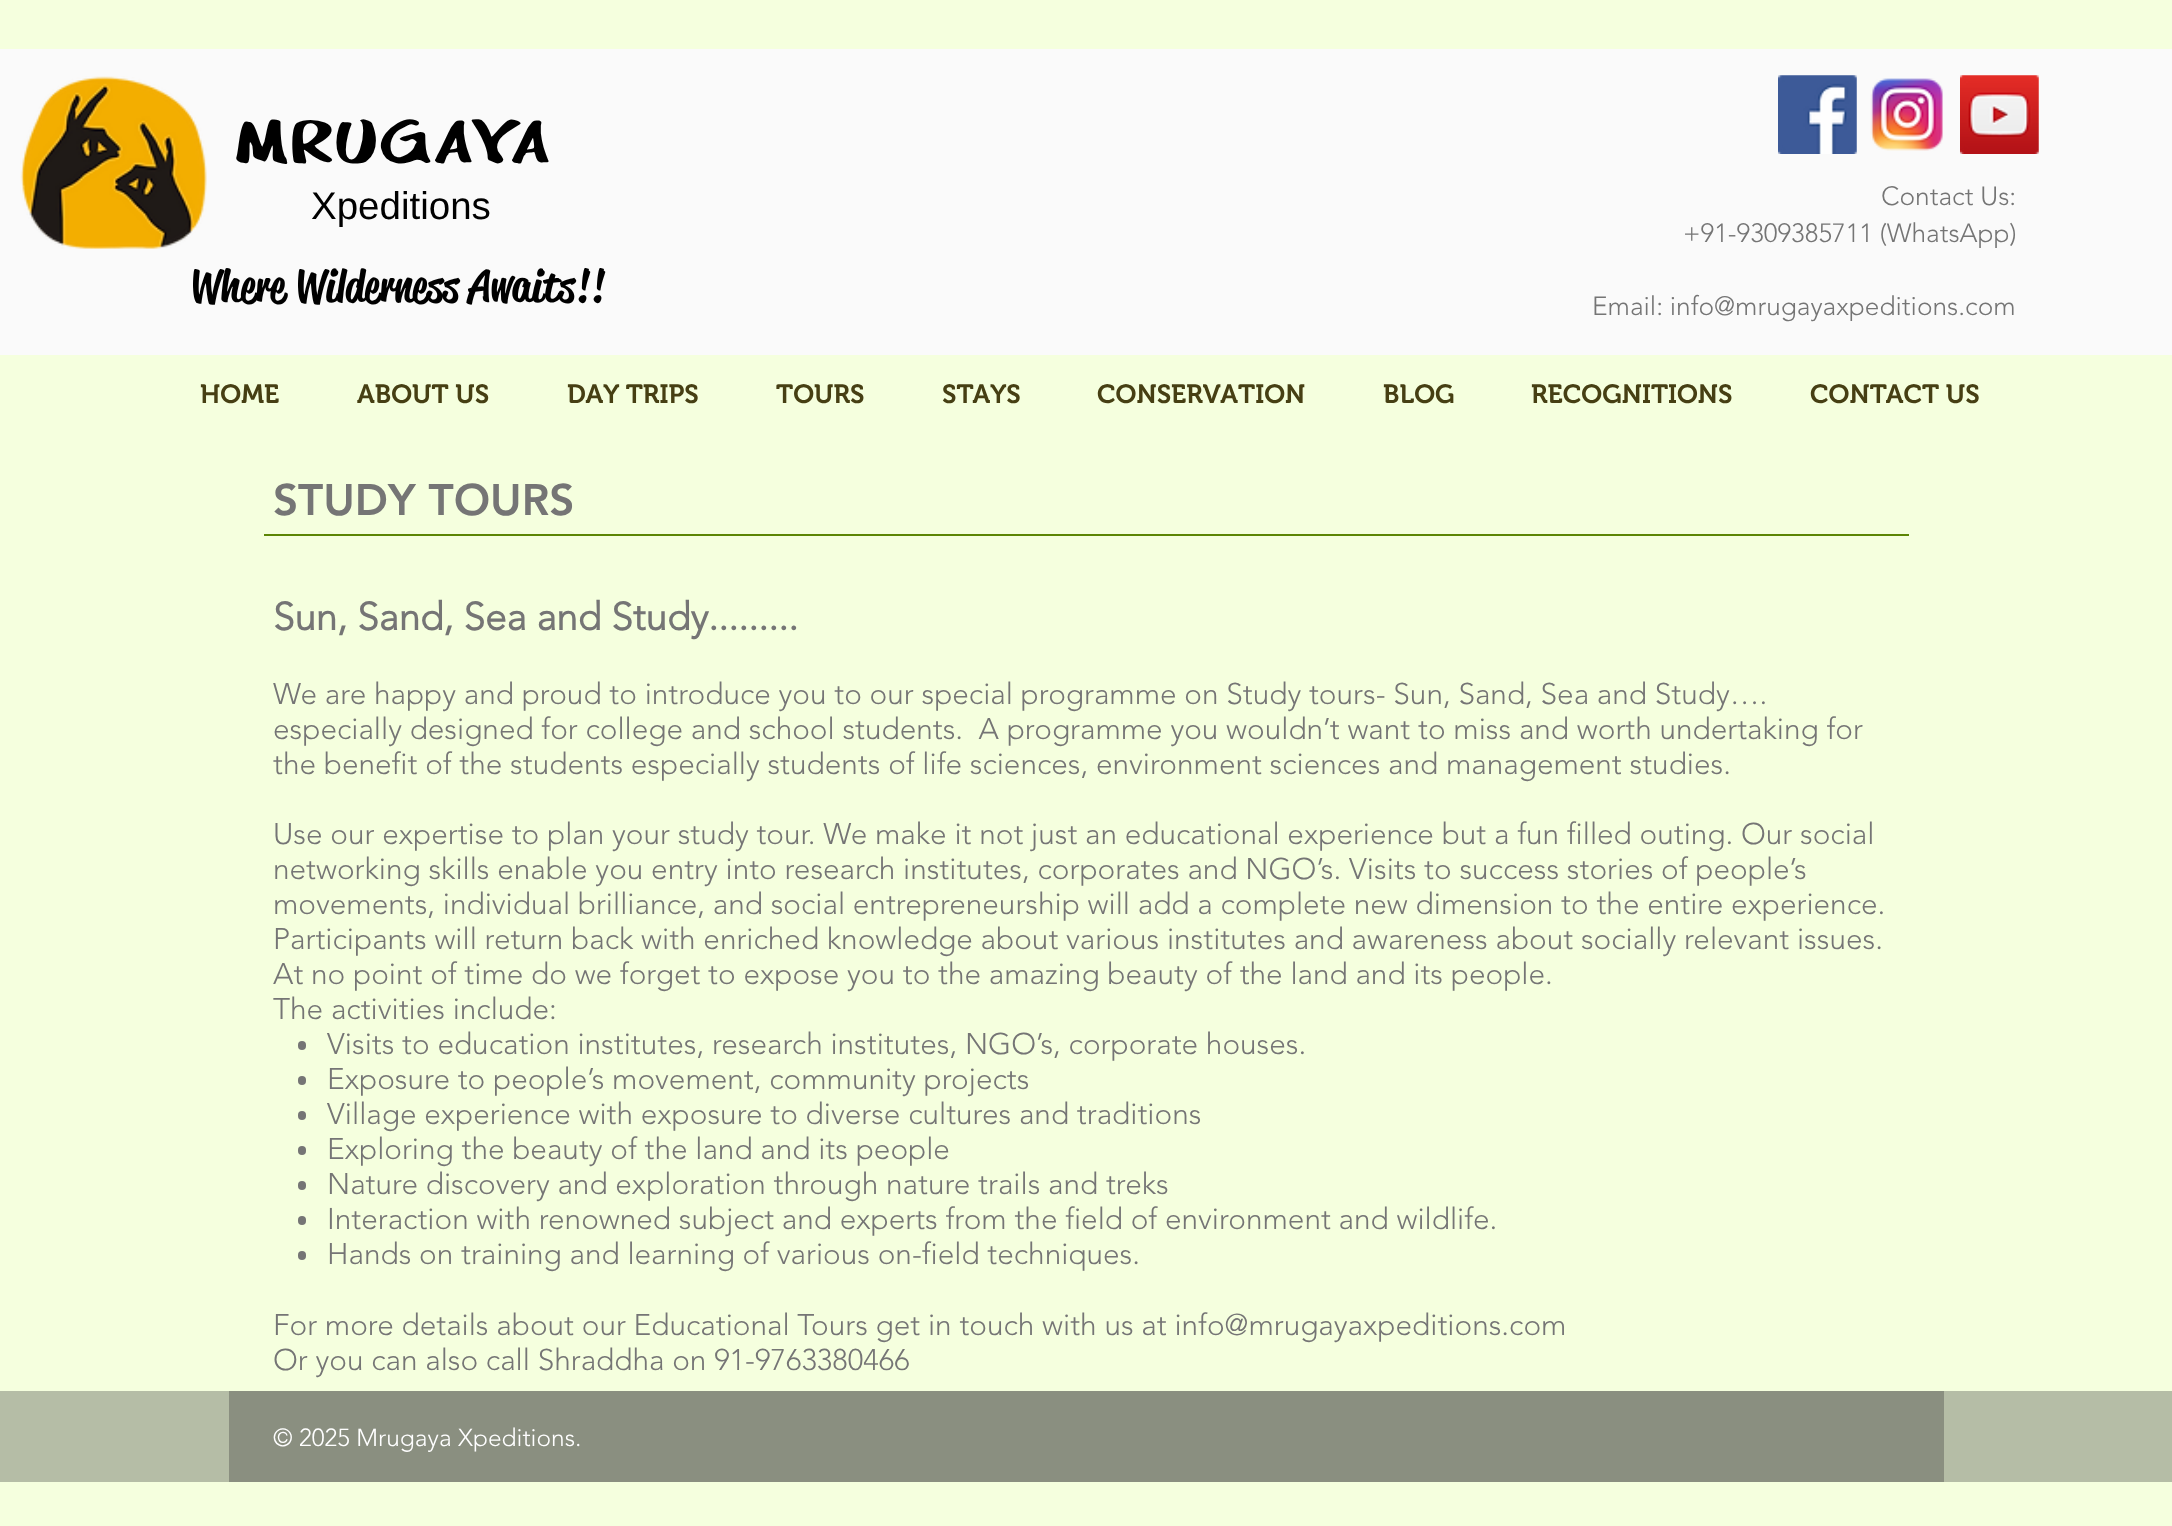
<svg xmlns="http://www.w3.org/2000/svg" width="2172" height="1526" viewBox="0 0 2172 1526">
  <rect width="100%" height="100%" fill="#f5ffde"/>
  <rect x="0" y="49" width="2172" height="306" fill="#fafafa"/>
  <image x="20" y="76" width="187" height="173" href="img1.png"/>
  <text x="234" y="163" font-family="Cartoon" font-size="73.5" font-weight="100" fill="#000000">MRUGAYA</text>
  <text x="311" y="219" font-family="Liberation Sans" font-size="38.5" fill="#000000">Xpeditions</text>
  <image x="1778" y="75" width="79" height="79" href="img2.png"/>
  <image x="1870" y="78" width="73" height="73" href="img3.png"/>
  <image x="1960" y="75" width="79" height="79" href="img4.png"/>
  <text x="190" y="301" font-family="'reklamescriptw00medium'" font-size="43.75" font-weight="500" fill="#000000">Where Wilderness Awaits!!</text>
  <text x="1881" y="205" font-family="'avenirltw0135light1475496'" font-size="26.25" font-weight="300" fill="#757575">Contact Us:</text>
  <text x="1683" y="242" font-family="'avenirltw0135light1475496'" font-size="26.25" font-weight="300" fill="#757575">+91-9309385711 (WhatsApp)</text>
  <text x="1592" y="315" font-family="'avenirltw0135light1475496'" font-size="26.25" font-weight="300" fill="#757575">Email: info@mrugayaxpeditions.com</text>
  <text x="200" y="403" font-family="'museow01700'" font-size="26.25" font-weight="600" fill="#463f13">HOME</text>
  <text x="357" y="403" font-family="'museow01700'" font-size="26.25" font-weight="600" fill="#463f13">ABOUT US</text>
  <text x="567" y="403" font-family="'museow01700'" font-size="26.25" font-weight="600" fill="#463f13">DAY TRIPS</text>
  <text x="776" y="403" font-family="'museow01700'" font-size="26.25" font-weight="600" fill="#463f13">TOURS</text>
  <text x="942" y="403" font-family="'museow01700'" font-size="26.25" font-weight="600" fill="#463f13">STAYS</text>
  <text x="1097" y="403" font-family="'museow01700'" font-size="26.25" font-weight="600" fill="#463f13">CONSERVATION</text>
  <text x="1383" y="403" font-family="'museow01700'" font-size="26.25" font-weight="600" fill="#463f13">BLOG</text>
  <text x="1531" y="403" font-family="'museow01700'" font-size="26.25" font-weight="600" fill="#463f13">RECOGNITIONS</text>
  <text x="1810" y="403" font-family="'museow01700'" font-size="26.25" font-weight="600" fill="#463f13">CONTACT US</text>
  <text x="273" y="515" font-family="'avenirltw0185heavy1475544'" font-size="43.75" font-weight="900" fill="#757575">STUDY TOURS</text>
  <rect x="264" y="534" width="1645" height="2" fill="#5c8505"/>
  <text x="273" y="630" font-family="'avenirltw0135light1475496'" font-size="38.5" font-weight="bold" fill="#757575">Sun, Sand, Sea and Study.........</text>
  <text x="273" y="704" font-family="'avenirltw0135light1475496'" font-size="29.75" font-weight="300" fill="#757575">We are happy and proud to introduce you to our special programme on Study tours- Sun, Sand, Sea and Study….</text>
  <text x="273" y="739" font-family="'avenirltw0135light1475496'" font-size="29.75" font-weight="300" fill="#757575" xml:space="preserve">especially designed for college and school students.  A programme you wouldn’t want to miss and worth undertaking for</text>
  <text x="273" y="774" font-family="'avenirltw0135light1475496'" font-size="29.75" font-weight="300" fill="#757575">the benefit of the students especially students of life sciences, environment sciences and management studies.</text>
  <text x="273" y="844" font-family="'avenirltw0135light1475496'" font-size="29.75" font-weight="300" fill="#757575">Use our expertise to plan your study tour. We make it not just an educational experience but a fun filled outing. Our social</text>
  <text x="273" y="879" font-family="'avenirltw0135light1475496'" font-size="29.75" font-weight="300" fill="#757575">networking skills enable you entry into research institutes, corporates and NGO’s. Visits to success stories of people’s</text>
  <text x="273" y="914" font-family="'avenirltw0135light1475496'" font-size="29.75" font-weight="300" fill="#757575">movements, individual brilliance, and social entrepreneurship will add a complete new dimension to the entire experience.</text>
  <text x="273" y="949" font-family="'avenirltw0135light1475496'" font-size="29.75" font-weight="300" fill="#757575">Participants will return back with enriched knowledge about various institutes and awareness about socially relevant issues.</text>
  <text x="273" y="984" font-family="'avenirltw0135light1475496'" font-size="29.75" font-weight="300" fill="#757575">At no point of time do we forget to expose you to the amazing beauty of the land and its people.</text>
  <text x="273" y="1019" font-family="'avenirltw0135light1475496'" font-size="29.75" font-weight="300" fill="#757575">The activities include:</text>
  <rect x="298" y="1041" width="8" height="9" rx="4" fill="#757575"/>
  <text x="327" y="1054" font-family="'avenirltw0135light1475496'" font-size="29.75" font-weight="300" fill="#757575">Visits to education institutes, research institutes, NGO’s, corporate houses.</text>
  <rect x="298" y="1076" width="8" height="9" rx="4" fill="#757575"/>
  <text x="327" y="1089" font-family="'avenirltw0135light1475496'" font-size="29.75" font-weight="300" fill="#757575">Exposure to people’s movement, community projects</text>
  <rect x="298" y="1111" width="8" height="9" rx="4" fill="#757575"/>
  <text x="327" y="1124" font-family="'avenirltw0135light1475496'" font-size="29.75" font-weight="300" fill="#757575">Village experience with exposure to diverse cultures and traditions</text>
  <rect x="298" y="1146" width="8" height="9" rx="4" fill="#757575"/>
  <text x="327" y="1159" font-family="'avenirltw0135light1475496'" font-size="29.75" font-weight="300" fill="#757575">Exploring the beauty of the land and its people</text>
  <rect x="298" y="1181" width="8" height="9" rx="4" fill="#757575"/>
  <text x="327" y="1194" font-family="'avenirltw0135light1475496'" font-size="29.75" font-weight="300" fill="#757575">Nature discovery and exploration through nature trails and treks</text>
  <rect x="298" y="1216" width="8" height="9" rx="4" fill="#757575"/>
  <text x="327" y="1229" font-family="'avenirltw0135light1475496'" font-size="29.75" font-weight="300" fill="#757575">Interaction with renowned subject and experts from the field of environment and wildlife.</text>
  <rect x="298" y="1251" width="8" height="9" rx="4" fill="#757575"/>
  <text x="327" y="1264" font-family="'avenirltw0135light1475496'" font-size="29.75" font-weight="300" fill="#757575">Hands on training and learning of various on-field techniques.</text>
  <text x="273" y="1335" font-family="'avenirltw0135light1475496'" font-size="29.75" font-weight="300" fill="#757575">For more details about our Educational Tours get in touch with us at info@mrugayaxpeditions.com</text>
  <text x="273" y="1370" font-family="'avenirltw0135light1475496'" font-size="29.75" font-weight="300" fill="#757575">Or you can also call Shraddha on 91-9763380466</text>
  <rect x="0" y="1391" width="2172" height="91" fill="#b5bda6"/>
  <rect x="229" y="1391" width="1715" height="91" fill="#8a8f80"/>
  <text x="273" y="1446" font-family="'avenirltw0135light1475496'" font-size="24.5" font-weight="300" fill="#ffffff">© 2025 Mrugaya Xpeditions.</text>
</svg>
